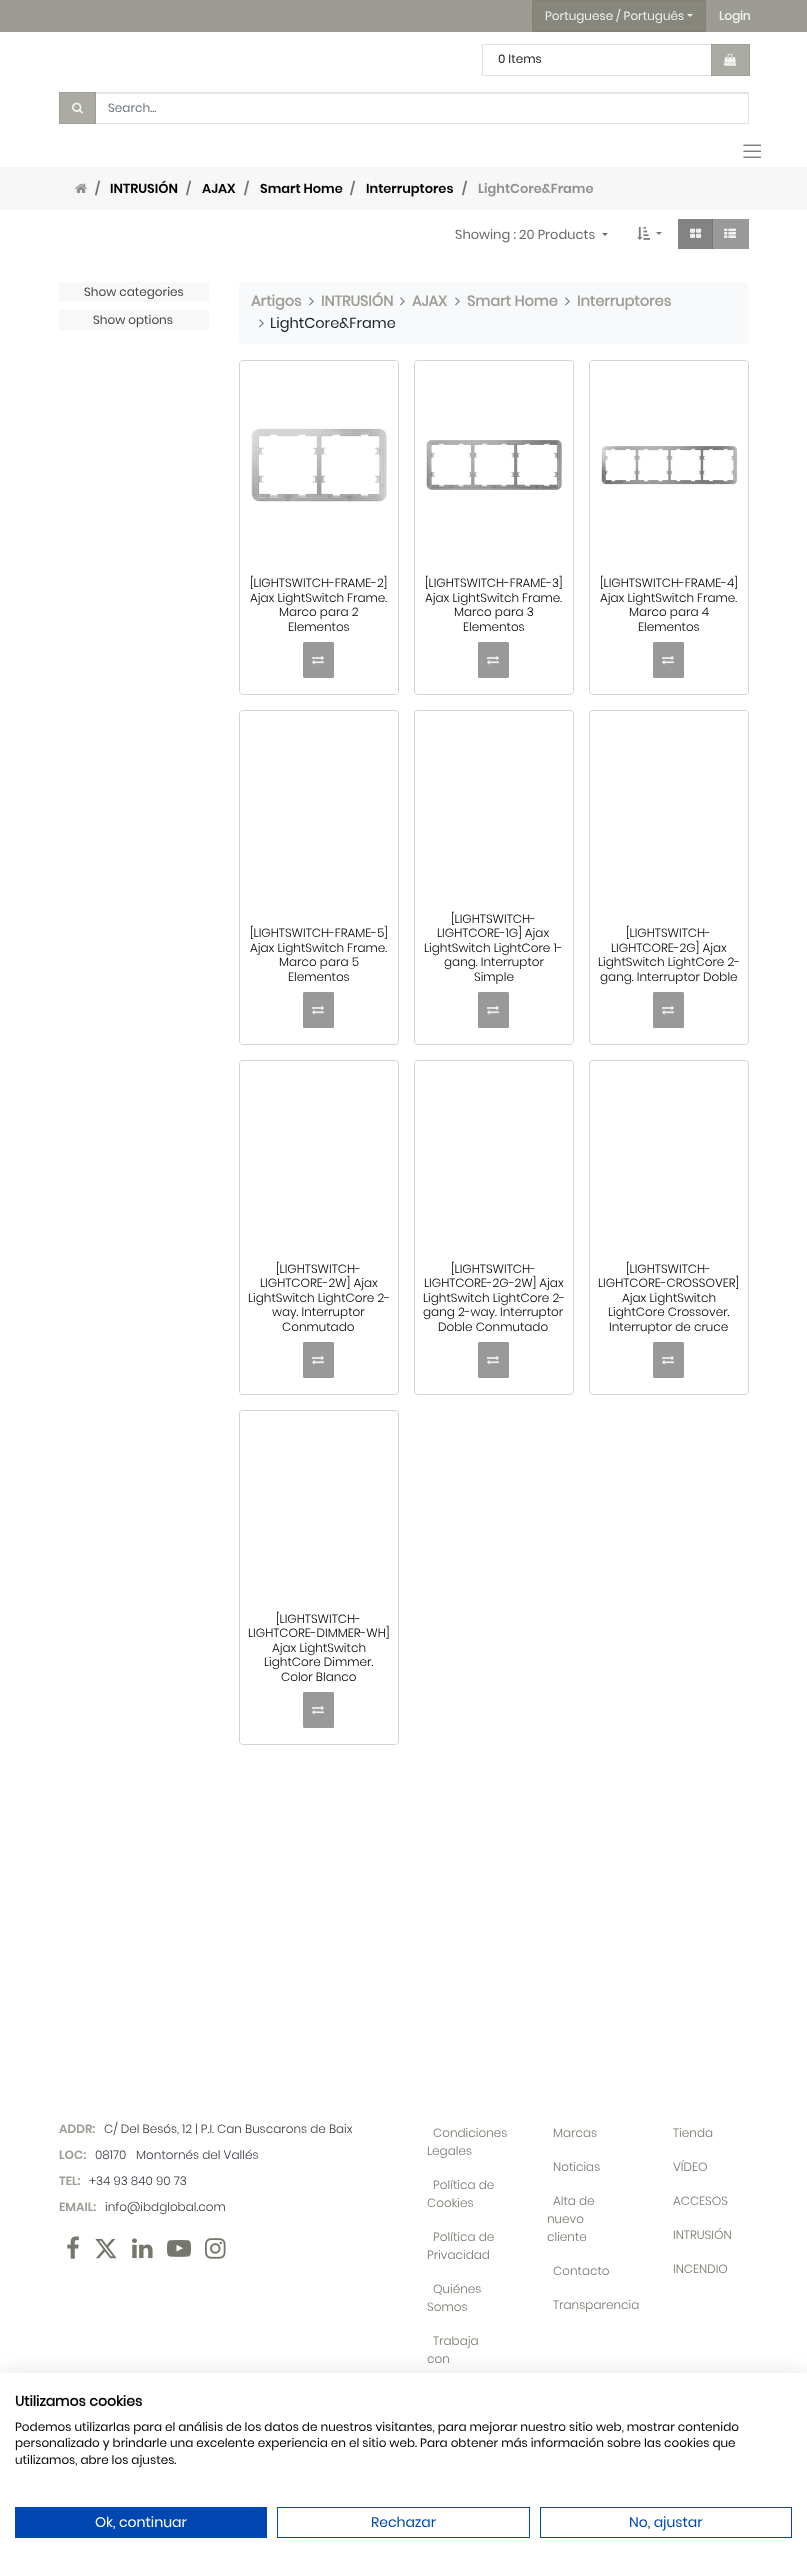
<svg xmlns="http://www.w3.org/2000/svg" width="807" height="2565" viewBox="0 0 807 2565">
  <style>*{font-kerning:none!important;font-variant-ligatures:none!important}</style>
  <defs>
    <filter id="blur1" x="-50%" y="-200%" width="200%" height="500%"><feGaussianBlur stdDeviation="12"/></filter>
  </defs>
  <rect width="100%" height="100%" fill="#ffffff"/>
  <rect x="711" y="44" width="39" height="32" fill="#ababa4"/>
  <rect x="678" y="219" width="34" height="30" fill="#848383"/>
  <rect x="0" y="0" width="807" height="32" fill="#9c9c94"/>
  <rect x="532.5" y="0.5" width="173" height="31" rx="0.5" fill="#87877e" stroke="#828278"/>
  <text x="545" y="20" font-family="Poppins" font-size="12" fill="#f0f0ef">Portuguese / Português</text>
  <path d="M687 14H693L690 17Z" fill="#f0f0ef"/>
  <text x="719" y="20" font-family="Poppins" font-size="12" font-weight="bold" fill="#f0f0ef">Login</text>
  <rect x="482" y="44" width="230" height="1" fill="#dee2e6"/>
  <rect x="711" y="44" width="1" height="1" fill="#a6a7a0"/>
  <rect x="482" y="75" width="230" height="1" fill="#dee2e6"/>
  <rect x="711" y="75" width="1" height="1" fill="#a6a7a0"/>
  <rect x="482" y="44" width="1" height="32" fill="#dee2e6"/>
  <text x="498" y="63" font-family="Poppins" font-size="12" fill="#212529">0 Items</text>
  <rect x="711.5" y="44.5" width="38" height="31" fill="none" stroke="#9c9c94" stroke-opacity="0.85"/>
  <image x="724" y="53" width="12" height="13" href="img1.png"/>
  <rect x="96" y="93" width="652" height="1" fill="#e6e6e6"/>
  <rect x="95.5" y="92.5" width="653" height="31" fill="none" stroke="#dee2e6"/>
  <rect x="59" y="92" width="37" height="32" fill="#9c9c94" fill-opacity="0.85"/>
  <rect x="59.5" y="92.5" width="36" height="31" fill="none" stroke="#9c9c94" stroke-opacity="0.85"/>
  <image x="72" y="102" width="11" height="12" href="img2.png"/>
  <text x="108" y="112" font-family="Poppins" font-size="12" fill="#6c757d">Search...</text>
  <image x="743" y="144" width="19" height="14" href="img3.png"/>
  <rect x="0" y="167" width="807" height="43" fill="#f7f7f7"/>
  <image x="75" y="183" width="12" height="10" href="img4.png"/>
  <text x="95" y="193" font-family="Poppins" font-size="13" font-weight="600" fill="#6c757d">/</text>
  <text x="110" y="193" font-family="Poppins" font-size="13" font-weight="600" fill="#000000">INTRUSIÓN</text>
  <text x="186" y="193" font-family="Poppins" font-size="13" font-weight="600" fill="#6c757d">/</text>
  <text x="202" y="193" font-family="Poppins" font-size="13" font-weight="600" fill="#000000">AJAX</text>
  <text x="244" y="193" font-family="Poppins" font-size="13" font-weight="600" fill="#6c757d">/</text>
  <text x="260" y="193" font-family="Poppins" font-size="13" font-weight="600" fill="#000000">Smart Home</text>
  <text x="350" y="193" font-family="Poppins" font-size="13" font-weight="600" fill="#6c757d">/</text>
  <text x="366" y="193" font-family="Poppins" font-size="13" font-weight="600" fill="#000000">Interruptores</text>
  <text x="462" y="193" font-family="Poppins" font-size="13" font-weight="600" fill="#6c757d">/</text>
  <text x="478" y="193" font-family="Poppins" font-size="13" font-weight="600" fill="#909090">LightCore&amp;Frame</text>
  <text x="455" y="239" font-family="Poppins" font-size="13" fill="#6a6a6a">Showing : 20 Products</text>
  <path d="M602 233H608L605 236Z" fill="#6a6a6a"/>
  <image x="637" y="226" width="13" height="14" href="img5.png"/>
  <path d="M656 232H662L659 235Z" fill="#7b7e80"/>
  <image x="690" y="228" width="12" height="10" href="img6.png"/>
  <rect x="713" y="219" width="36" height="30" fill="#999999"/>
  <rect x="712" y="219" width="1" height="30" fill="#747474"/>
  <image x="724" y="228" width="12" height="10" href="img7.png"/>
  <rect x="59" y="282" width="150" height="20" rx="1" fill="#f8f8f8"/>
  <text x="84" y="296" font-family="Poppins" font-size="12" fill="#424649">Show categories</text>
  <rect x="59" y="310" width="150" height="20" rx="1" fill="#f8f8f8"/>
  <text x="93" y="324" font-family="Poppins" font-size="12" fill="#424649">Show options</text>
  <rect x="239" y="282" width="510" height="62" rx="4" fill="#f8f9fa"/>
  <text x="251" y="306" font-family="Poppins" font-size="14.5" font-weight="bold" fill="#9c9c94">Artigos</text>
  <image x="309" y="297" width="5" height="9" href="img8.png"/>
  <text x="321" y="306" font-family="Poppins" font-size="14.5" font-weight="bold" fill="#9c9c94">INTRUSIÓN</text>
  <image x="400" y="297" width="5" height="9" href="img8.png"/>
  <text x="412" y="306" font-family="Poppins" font-size="14.5" font-weight="bold" fill="#9c9c94">AJAX</text>
  <image x="455" y="297" width="5" height="9" href="img8.png"/>
  <text x="467" y="306" font-family="Poppins" font-size="14.5" font-weight="bold" fill="#9c9c94">Smart Home</text>
  <image x="565" y="297" width="5" height="9" href="img8.png"/>
  <text x="577" y="306" font-family="Poppins" font-size="14.5" font-weight="bold" fill="#9c9c94">Interruptores</text>
  <image x="259" y="319" width="5" height="9" href="img8.png"/>
  <text x="270" y="328" font-family="Poppins" font-size="14.5" fill="#212529">LightCore&amp;Frame</text>
  <rect x="239.5" y="360.5" width="159" height="334" rx="3.5" fill="none" stroke="#ced4da"/>
  <path d="M243 361H395C396.5 361 398 362.5 398 364V568H240V364C240 362.5 241.5 361 243 361Z" fill="#ffffff" fill-opacity="0.9"/>
  <image x="251" y="428" width="136" height="74" href="img9.png"/>
  <path d="M240 568H398V691C398 692.5 396.5 694 395 694H243C241.5 694 240 692.5 240 691Z" fill="#ffffff" fill-opacity="0.9"/>
  <text x="250" y="587" font-family="Poppins" font-size="12" font-weight="300" fill="#000000">[LIGHTSWITCH-FRAME-2]</text>
  <text x="250" y="602" font-family="Poppins" font-size="12" font-weight="300" fill="#000000">Ajax LightSwitch Frame.</text>
  <text x="279" y="616" font-family="Poppins" font-size="12" font-weight="300" fill="#000000">Marco para 2</text>
  <text x="288" y="631" font-family="Poppins" font-size="12" font-weight="300" fill="#000000">Elementos</text>
  <rect x="303.5" y="642.5" width="30" height="35" rx="0.5" fill="#999999" stroke="#999999"/>
  <image x="312" y="655" width="12" height="10" href="img10.png"/>
  <rect x="414.5" y="360.5" width="159" height="334" rx="3.5" fill="none" stroke="#ced4da"/>
  <path d="M418 361H570C571.5 361 573 362.5 573 364V568H415V364C415 362.5 416.5 361 418 361Z" fill="#ffffff" fill-opacity="0.9"/>
  <image x="426" y="440" width="136" height="50" href="img11.png"/>
  <path d="M415 568H573V691C573 692.5 571.5 694 570 694H418C416.5 694 415 692.5 415 691Z" fill="#ffffff" fill-opacity="0.9"/>
  <text x="425" y="587" font-family="Poppins" font-size="12" font-weight="300" fill="#000000">[LIGHTSWITCH-FRAME-3]</text>
  <text x="425" y="602" font-family="Poppins" font-size="12" font-weight="300" fill="#000000">Ajax LightSwitch Frame.</text>
  <text x="454" y="616" font-family="Poppins" font-size="12" font-weight="300" fill="#000000">Marco para 3</text>
  <text x="463" y="631" font-family="Poppins" font-size="12" font-weight="300" fill="#000000">Elementos</text>
  <rect x="478.5" y="642.5" width="30" height="35" rx="0.5" fill="#999999" stroke="#999999"/>
  <image x="487" y="655" width="12" height="10" href="img10.png"/>
  <rect x="589.5" y="360.5" width="159" height="334" rx="3.5" fill="none" stroke="#ced4da"/>
  <path d="M593 361H745C746.5 361 748 362.5 748 364V568H590V364C590 362.5 591.5 361 593 361Z" fill="#ffffff" fill-opacity="0.9"/>
  <image x="601" y="446" width="137" height="39" href="img12.png"/>
  <path d="M590 568H748V691C748 692.5 746.5 694 745 694H593C591.5 694 590 692.5 590 691Z" fill="#ffffff" fill-opacity="0.9"/>
  <text x="600" y="587" font-family="Poppins" font-size="12" font-weight="300" fill="#000000">[LIGHTSWITCH-FRAME-4]</text>
  <text x="600" y="602" font-family="Poppins" font-size="12" font-weight="300" fill="#000000">Ajax LightSwitch Frame.</text>
  <text x="629" y="616" font-family="Poppins" font-size="12" font-weight="300" fill="#000000">Marco para 4</text>
  <text x="638" y="631" font-family="Poppins" font-size="12" font-weight="300" fill="#000000">Elementos</text>
  <rect x="653.5" y="642.5" width="30" height="35" rx="0.5" fill="#999999" stroke="#999999"/>
  <image x="662" y="655" width="12" height="10" href="img10.png"/>
  <rect x="239.5" y="710.5" width="159" height="334" rx="3.5" fill="none" stroke="#ced4da"/>
  <path d="M243 711H395C396.5 711 398 712.5 398 714V918H240V714C240 712.5 241.5 711 243 711Z" fill="#ffffff" fill-opacity="0.9"/>
  <path d="M240 918H398V1041C398 1042.5 396.5 1044 395 1044H243C241.5 1044 240 1042.5 240 1041Z" fill="#ffffff" fill-opacity="0.9"/>
  <text x="250" y="937" font-family="Poppins" font-size="12" font-weight="300" fill="#000000">[LIGHTSWITCH-FRAME-5]</text>
  <text x="250" y="952" font-family="Poppins" font-size="12" font-weight="300" fill="#000000">Ajax LightSwitch Frame.</text>
  <text x="279" y="966" font-family="Poppins" font-size="12" font-weight="300" fill="#000000">Marco para 5</text>
  <text x="288" y="981" font-family="Poppins" font-size="12" font-weight="300" fill="#000000">Elementos</text>
  <rect x="303.5" y="992.5" width="30" height="35" rx="0.5" fill="#999999" stroke="#999999"/>
  <image x="312" y="1005" width="12" height="10" href="img10.png"/>
  <rect x="414.5" y="710.5" width="159" height="334" rx="3.5" fill="none" stroke="#ced4da"/>
  <path d="M418 711H570C571.5 711 573 712.5 573 714V904H415V714C415 712.5 416.5 711 418 711Z" fill="#ffffff" fill-opacity="0.9"/>
  <path d="M415 904H573V1041C573 1042.5 571.5 1044 570 1044H418C416.5 1044 415 1042.5 415 1041Z" fill="#ffffff" fill-opacity="0.9"/>
  <text x="451" y="923" font-family="Poppins" font-size="12" font-weight="300" fill="#000000">[LIGHTSWITCH-</text>
  <text x="437" y="937" font-family="Poppins" font-size="12" font-weight="300" fill="#000000">LIGHTCORE-1G] Ajax</text>
  <text x="424" y="952" font-family="Poppins" font-size="12" font-weight="300" fill="#000000">LightSwitch LightCore 1-</text>
  <text x="444" y="966" font-family="Poppins" font-size="12" font-weight="300" fill="#000000">gang. Interruptor</text>
  <text x="474" y="981" font-family="Poppins" font-size="12" font-weight="300" fill="#000000">Simple</text>
  <rect x="478.5" y="992.5" width="30" height="35" rx="0.5" fill="#999999" stroke="#999999"/>
  <image x="487" y="1005" width="12" height="10" href="img10.png"/>
  <rect x="589.5" y="710.5" width="159" height="334" rx="3.5" fill="none" stroke="#ced4da"/>
  <path d="M593 711H745C746.5 711 748 712.5 748 714V918H590V714C590 712.5 591.5 711 593 711Z" fill="#ffffff" fill-opacity="0.9"/>
  <path d="M590 918H748V1041C748 1042.5 746.5 1044 745 1044H593C591.5 1044 590 1042.5 590 1041Z" fill="#ffffff" fill-opacity="0.9"/>
  <text x="626" y="937" font-family="Poppins" font-size="12" font-weight="300" fill="#000000">[LIGHTSWITCH-</text>
  <text x="611" y="952" font-family="Poppins" font-size="12" font-weight="300" fill="#000000">LIGHTCORE-2G] Ajax</text>
  <text x="598" y="966" font-family="Poppins" font-size="12" font-weight="300" fill="#000000">LightSwitch LightCore 2-</text>
  <text x="600" y="981" font-family="Poppins" font-size="12" font-weight="300" fill="#000000">gang. Interruptor Doble</text>
  <rect x="653.5" y="992.5" width="30" height="35" rx="0.5" fill="#999999" stroke="#999999"/>
  <image x="662" y="1005" width="12" height="10" href="img10.png"/>
  <rect x="239.5" y="1060.5" width="159" height="334" rx="3.5" fill="none" stroke="#ced4da"/>
  <path d="M243 1061H395C396.5 1061 398 1062.5 398 1064V1254H240V1064C240 1062.5 241.5 1061 243 1061Z" fill="#ffffff" fill-opacity="0.9"/>
  <path d="M240 1254H398V1391C398 1392.5 396.5 1394 395 1394H243C241.5 1394 240 1392.5 240 1391Z" fill="#ffffff" fill-opacity="0.9"/>
  <text x="276" y="1273" font-family="Poppins" font-size="12" font-weight="300" fill="#000000">[LIGHTSWITCH-</text>
  <text x="260" y="1287" font-family="Poppins" font-size="12" font-weight="300" fill="#000000">LIGHTCORE-2W] Ajax</text>
  <text x="248" y="1302" font-family="Poppins" font-size="12" font-weight="300" fill="#000000">LightSwitch LightCore 2-</text>
  <text x="272" y="1316" font-family="Poppins" font-size="12" font-weight="300" fill="#000000">way. Interruptor</text>
  <text x="282" y="1331" font-family="Poppins" font-size="12" font-weight="300" fill="#000000">Conmutado</text>
  <rect x="303.5" y="1342.5" width="30" height="35" rx="0.5" fill="#999999" stroke="#999999"/>
  <image x="312" y="1355" width="12" height="10" href="img10.png"/>
  <rect x="414.5" y="1060.5" width="159" height="334" rx="3.5" fill="none" stroke="#ced4da"/>
  <path d="M418 1061H570C571.5 1061 573 1062.5 573 1064V1254H415V1064C415 1062.5 416.5 1061 418 1061Z" fill="#ffffff" fill-opacity="0.9"/>
  <path d="M415 1254H573V1391C573 1392.5 571.5 1394 570 1394H418C416.5 1394 415 1392.5 415 1391Z" fill="#ffffff" fill-opacity="0.9"/>
  <text x="451" y="1273" font-family="Poppins" font-size="12" font-weight="300" fill="#000000">[LIGHTSWITCH-</text>
  <text x="424" y="1287" font-family="Poppins" font-size="12" font-weight="300" fill="#000000">LIGHTCORE-2G-2W] Ajax</text>
  <text x="423" y="1302" font-family="Poppins" font-size="12" font-weight="300" fill="#000000">LightSwitch LightCore 2-</text>
  <text x="423" y="1316" font-family="Poppins" font-size="12" font-weight="300" fill="#000000">gang 2-way. Interruptor</text>
  <text x="438" y="1331" font-family="Poppins" font-size="12" font-weight="300" fill="#000000">Doble Conmutado</text>
  <rect x="478.5" y="1342.5" width="30" height="35" rx="0.5" fill="#999999" stroke="#999999"/>
  <image x="487" y="1355" width="12" height="10" href="img10.png"/>
  <rect x="589.5" y="1060.5" width="159" height="334" rx="3.5" fill="none" stroke="#ced4da"/>
  <path d="M593 1061H745C746.5 1061 748 1062.5 748 1064V1254H590V1064C590 1062.5 591.5 1061 593 1061Z" fill="#ffffff" fill-opacity="0.9"/>
  <path d="M590 1254H748V1391C748 1392.5 746.5 1394 745 1394H593C591.5 1394 590 1392.5 590 1391Z" fill="#ffffff" fill-opacity="0.9"/>
  <text x="626" y="1273" font-family="Poppins" font-size="12" font-weight="300" fill="#000000">[LIGHTSWITCH-</text>
  <text x="598" y="1287" font-family="Poppins" font-size="12" font-weight="300" fill="#000000">LIGHTCORE-CROSSOVER]</text>
  <text x="622" y="1302" font-family="Poppins" font-size="12" font-weight="300" fill="#000000">Ajax LightSwitch</text>
  <text x="608" y="1316" font-family="Poppins" font-size="12" font-weight="300" fill="#000000">LightCore Crossover.</text>
  <text x="609" y="1331" font-family="Poppins" font-size="12" font-weight="300" fill="#000000">Interruptor de cruce</text>
  <rect x="653.5" y="1342.5" width="30" height="35" rx="0.5" fill="#999999" stroke="#999999"/>
  <image x="662" y="1355" width="12" height="10" href="img10.png"/>
  <rect x="239.5" y="1410.5" width="159" height="334" rx="3.5" fill="none" stroke="#ced4da"/>
  <path d="M243 1411H395C396.5 1411 398 1412.5 398 1414V1604H240V1414C240 1412.5 241.5 1411 243 1411Z" fill="#ffffff" fill-opacity="0.9"/>
  <path d="M240 1604H398V1741C398 1742.5 396.5 1744 395 1744H243C241.5 1744 240 1742.5 240 1741Z" fill="#ffffff" fill-opacity="0.9"/>
  <text x="276" y="1623" font-family="Poppins" font-size="12" font-weight="300" fill="#000000">[LIGHTSWITCH-</text>
  <text x="248" y="1637" font-family="Poppins" font-size="12" font-weight="300" fill="#000000">LIGHTCORE-DIMMER-WH]</text>
  <text x="272" y="1652" font-family="Poppins" font-size="12" font-weight="300" fill="#000000">Ajax LightSwitch</text>
  <text x="264" y="1666" font-family="Poppins" font-size="12" font-weight="300" fill="#000000">LightCore Dimmer.</text>
  <text x="281" y="1681" font-family="Poppins" font-size="12" font-weight="300" fill="#000000">Color Blanco</text>
  <rect x="303.5" y="1692.5" width="30" height="35" rx="0.5" fill="#999999" stroke="#999999"/>
  <image x="312" y="1705" width="12" height="10" href="img10.png"/>
  <text x="59" y="2133" font-family="Poppins" font-size="12" font-weight="600" fill="#9c9c94">ADDR:</text>
  <text x="104" y="2133" font-family="Poppins" font-size="12" font-weight="300" fill="#343a40">C/ Del Besós, 12 | P.I. Can Buscarons de Baix</text>
  <text x="59" y="2159" font-family="Poppins" font-size="12" font-weight="600" fill="#9c9c94">LOC:</text>
  <text x="95" y="2159" font-family="Poppins" font-size="12" font-weight="300" fill="#343a40">08170</text>
  <text x="136" y="2159" font-family="Poppins" font-size="12" font-weight="300" fill="#343a40">Montornés del Vallés</text>
  <text x="59" y="2185" font-family="Poppins" font-size="12" font-weight="600" fill="#9c9c94">TEL:</text>
  <text x="89" y="2185" font-family="Poppins" font-size="12" font-weight="300" fill="#343a40">+34 93 840 90 73</text>
  <text x="59" y="2211" font-family="Poppins" font-size="12" font-weight="600" fill="#9c9c94">EMAIL:</text>
  <text x="105" y="2211" font-family="Poppins" font-size="12" font-weight="300" fill="#343a40">info@ibdglobal.com</text>
  <image x="67" y="2236" width="12" height="23" href="img13.png"/>
  <image x="95" y="2238" width="22" height="21" href="img14.png"/>
  <image x="132" y="2238" width="21" height="21" href="img15.png"/>
  <image x="167" y="2240" width="24" height="17" href="img16.png"/>
  <image x="205" y="2238" width="21" height="21" href="img17.png"/>
  <text x="433" y="2137" font-family="Poppins" font-size="12" font-weight="300" fill="#76766d">Condiciones</text>
  <text x="427" y="2155" font-family="Poppins" font-size="12" font-weight="300" fill="#76766d">Legales</text>
  <text x="433" y="2189" font-family="Poppins" font-size="12" font-weight="300" fill="#76766d">Política de</text>
  <text x="427" y="2207" font-family="Poppins" font-size="12" font-weight="300" fill="#76766d">Cookies</text>
  <text x="433" y="2241" font-family="Poppins" font-size="12" font-weight="300" fill="#76766d">Política de</text>
  <text x="427" y="2259" font-family="Poppins" font-size="12" font-weight="300" fill="#76766d">Privacidad</text>
  <text x="433" y="2293" font-family="Poppins" font-size="12" font-weight="300" fill="#76766d">Quiénes</text>
  <text x="427" y="2311" font-family="Poppins" font-size="12" font-weight="300" fill="#76766d">Somos</text>
  <text x="433" y="2345" font-family="Poppins" font-size="12" font-weight="300" fill="#76766d">Trabaja</text>
  <text x="427" y="2363" font-family="Poppins" font-size="12" font-weight="300" fill="#76766d">con</text>
  <text x="553" y="2137" font-family="Poppins" font-size="12" font-weight="300" fill="#76766d">Marcas</text>
  <text x="553" y="2171" font-family="Poppins" font-size="12" font-weight="300" fill="#76766d">Noticias</text>
  <text x="553" y="2205" font-family="Poppins" font-size="12" font-weight="300" fill="#76766d">Alta de</text>
  <text x="547" y="2223" font-family="Poppins" font-size="12" font-weight="300" fill="#76766d">nuevo</text>
  <text x="547" y="2241" font-family="Poppins" font-size="12" font-weight="300" fill="#76766d">cliente</text>
  <text x="553" y="2275" font-family="Poppins" font-size="12" font-weight="300" fill="#76766d">Contacto</text>
  <text x="553" y="2309" font-family="Poppins" font-size="12" font-weight="300" fill="#76766d">Transparencia</text>
  <text x="673" y="2137" font-family="Poppins" font-size="12" font-weight="300" fill="#76766d">Tienda</text>
  <text x="673" y="2171" font-family="Poppins" font-size="12" font-weight="300" fill="#76766d">VÍDEO</text>
  <text x="673" y="2205" font-family="Poppins" font-size="12" font-weight="300" fill="#76766d">ACCESOS</text>
  <text x="673" y="2239" font-family="Poppins" font-size="12" font-weight="300" fill="#76766d">INTRUSIÓN</text>
  <text x="673" y="2273" font-family="Poppins" font-size="12" font-weight="300" fill="#76766d">INCENDIO</text>
  <rect x="0" y="2373" width="807" height="192" fill="#000000" fill-opacity="0.1" filter="url(#blur1)"/>
  <rect x="0" y="2373" width="807" height="192" fill="#ffffff"/>
  <text x="15" y="2406" font-family="Poppins" font-size="14" font-weight="bold" fill="#000000">Utilizamos cookies</text>
  <text x="15" y="2431" font-family="Poppins" font-size="12" fill="#000000">Podemos utilizarlas para el análisis de los datos de nuestros visitantes, para mejorar nuestro sitio web, mostrar contenido</text>
  <text x="15" y="2447" font-family="Poppins" font-size="12" fill="#000000">personalizado y brindarle una excelente experiencia en el sitio web. Para obtener más información sobre las cookies que</text>
  <text x="15" y="2464" font-family="Poppins" font-size="12" fill="#000000">utilizamos, abre los ajustes.</text>
  <rect x="15" y="2507" width="252" height="31" fill="#0047b2"/>
  <text x="95" y="2527" font-family="Poppins" font-size="14" fill="#ffffff">Ok, continuar</text>
  <rect x="277.5" y="2507.5" width="252" height="30" fill="none" stroke="#0047b2"/>
  <text x="371" y="2527" font-family="Poppins" font-size="14" fill="#0047b2">Rechazar</text>
  <rect x="540.5" y="2507.5" width="251" height="30" fill="none" stroke="#0047b2"/>
  <text x="629" y="2527" font-family="Poppins" font-size="14" fill="#0047b2">No, ajustar</text>
</svg>
